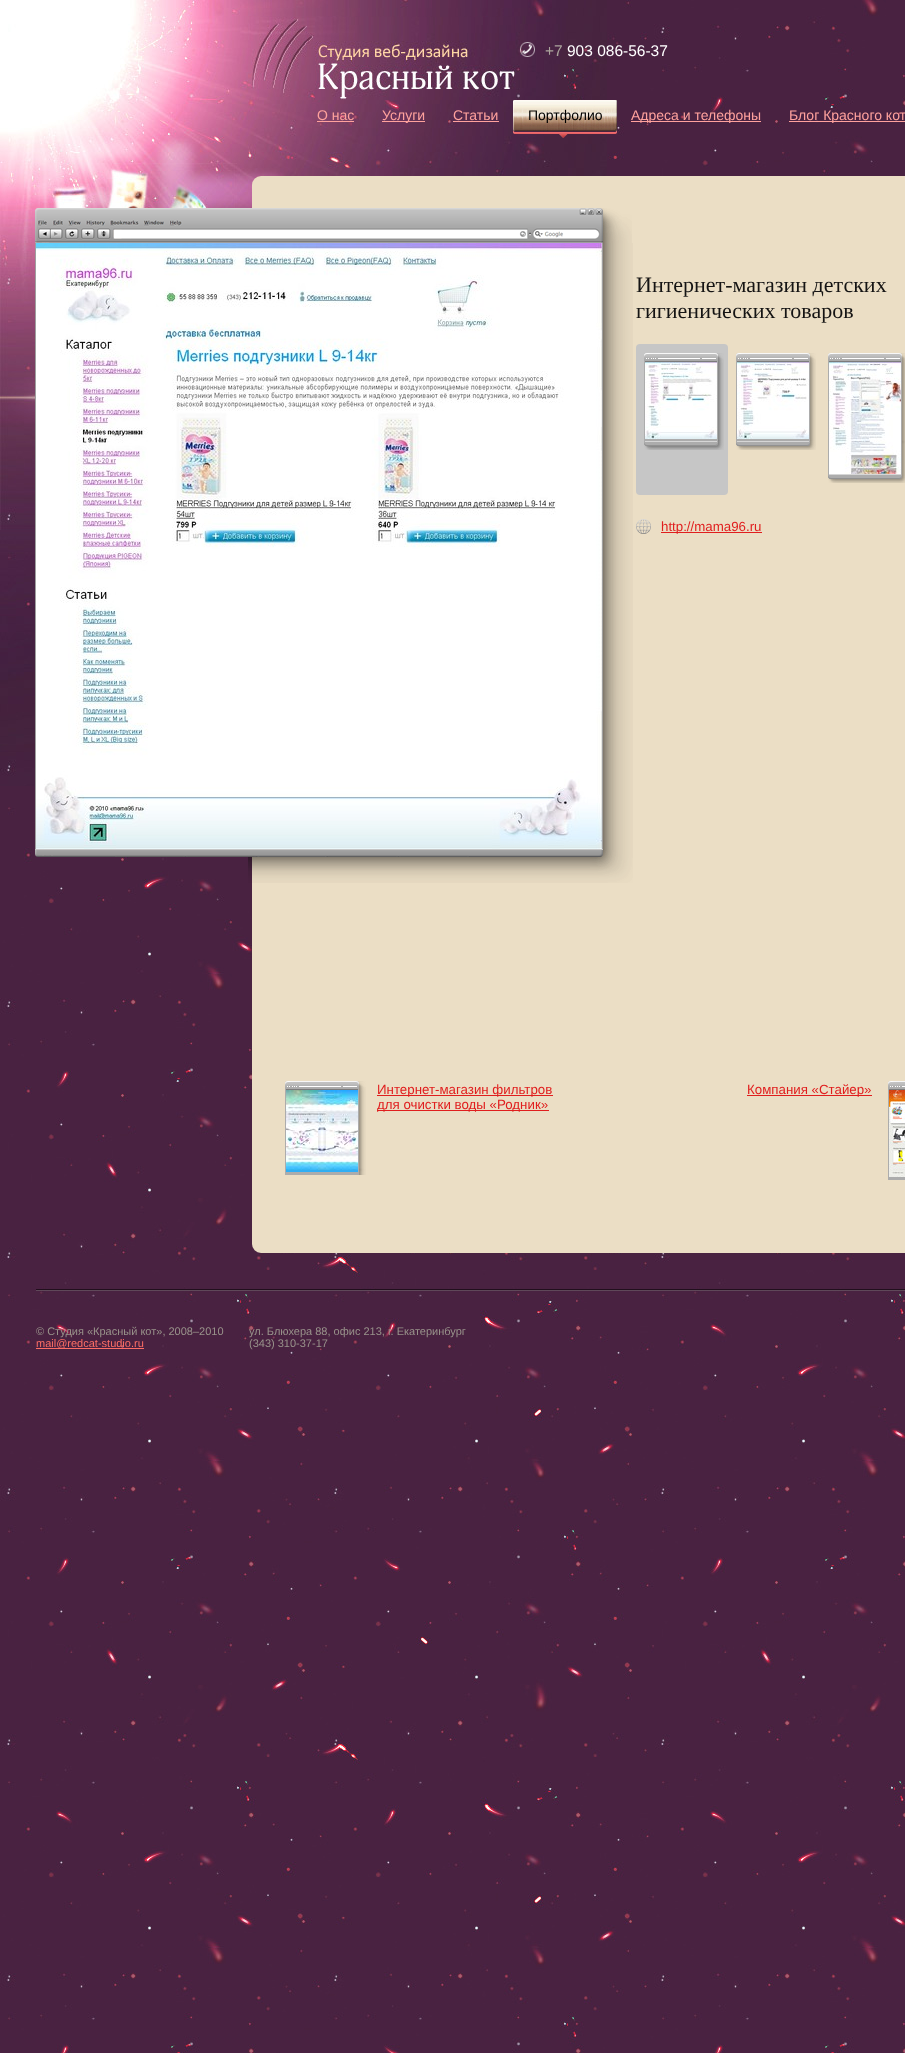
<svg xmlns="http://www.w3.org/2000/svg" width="905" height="2053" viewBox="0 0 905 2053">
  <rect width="100%" height="100%" fill="#ffffff"/>
  <image x="0" y="0" width="905" height="2053" href="img1.png"/>
  <image x="0" y="0" width="607" height="786" href="img2.png"/>
  <image x="251" y="17" width="265" height="83" href="img3.png"/>
  <image x="520" y="42" width="15" height="15" href="img4.png"/>
  <text x="545" y="56" font-family="Liberation Sans" font-size="15.5" fill="#aba49c">+7</text>
  <text x="567" y="56" font-family="Liberation Sans" font-size="15.5" fill="#ffffff">903 086-56-37</text>
  <text x="317" y="120" font-family="Liberation Sans" font-size="14" fill="#ffa29d">О нас</text>
  <rect x="317" y="121" width="37" height="1" fill="#ffa29d"/>
  <rect x="382" y="121" width="43" height="1" fill="#ffa29d"/>
  <text x="382" y="120" font-family="Liberation Sans" font-size="14" fill="#ffa29d">Услуги</text>
  <text x="453" y="120" font-family="Liberation Sans" font-size="14" fill="#ffa29d">Статьи</text>
  <rect x="453" y="121" width="46" height="1" fill="#ffa29d"/>
  <image x="513" y="100" width="2" height="34" href="img5.png"/>
  <image x="515" y="100" width="100" height="38" href="img6.png"/>
  <text x="528" y="120" font-family="Liberation Sans" font-size="14" fill="#000000">Портфолио</text>
  <image x="615" y="100" width="2" height="34" href="img7.png"/>
  <rect x="631" y="121" width="130" height="1" fill="#ffa29d"/>
  <text x="631" y="120" font-family="Liberation Sans" font-size="14" fill="#ffa29d">Адреса и телефоны</text>
  <rect x="789" y="121" width="116" height="1" fill="#ffa29d"/>
  <text x="789" y="120" font-family="Liberation Sans" font-size="14" fill="#ffa29d">Блог Красного кот</text>
  <image x="0" y="163" width="237" height="367" href="img8.png"/>
  <rect x="252" y="176" width="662" height="1077" rx="9" fill="#ebdec5"/>
  <text x="636" y="292" font-family="Liberation Serif" font-size="22" fill="#151414">Интернет-магазин детских</text>
  <text x="636" y="318" font-family="Liberation Serif" font-size="22" fill="#151414">гигиенических товаров</text>
  <rect x="636" y="344" width="92" height="151" rx="4" fill="#c6c6c6"/>
  <image x="644" y="353" width="80" height="88" href="img9.png"/>
  <image x="645" y="362" width="72" height="77" href="img10.png"/>
  <image x="644" y="441" width="80" height="9" href="img11.png"/>
  <image x="736" y="353" width="80" height="88" href="img12.png"/>
  <image x="737" y="362" width="72" height="77" href="img13.png"/>
  <image x="736" y="441" width="80" height="9" href="img14.png"/>
  <image x="828" y="353" width="77" height="121" href="img15.png"/>
  <image x="829" y="362" width="72" height="112" href="img16.png"/>
  <image x="828" y="474" width="77" height="9" href="img17.png"/>
  <image x="636" y="519" width="15" height="15" href="img18.png"/>
  <rect x="661" y="532" width="101" height="1" fill="#e01e1e"/>
  <text x="661" y="531" font-family="Liberation Sans" font-size="13.3" fill="#e01e1e">http://mama96.ru</text>
  <image x="285" y="1081" width="81" height="94" href="img19.png"/>
  <image x="286" y="1090" width="72" height="82" href="img20.png"/>
  <rect x="377" y="1095" width="176" height="1" fill="#e01e1e"/>
  <text x="377" y="1094" font-family="Liberation Sans" font-size="13.3" fill="#e01e1e">Интернет-магазин фильтров</text>
  <rect x="377" y="1110" width="172" height="1" fill="#e01e1e"/>
  <text x="377" y="1109" font-family="Liberation Sans" font-size="13.3" fill="#e01e1e">для очистки воды «Родник»</text>
  <rect x="747" y="1095" width="125" height="1" fill="#e01e1e"/>
  <text x="747" y="1094" font-family="Liberation Sans" font-size="13.3" fill="#e01e1e">Компания «Стайер»</text>
  <image x="888" y="1081" width="17" height="99" href="img21.png"/>
  <image x="889" y="1090" width="16" height="87" href="img22.png"/>
  <image x="35" y="208" width="597" height="35" href="img23.png"/>
  <image x="603" y="243" width="30" height="607" href="img24.png"/>
  <rect x="35" y="849" width="568" height="1" fill="#c6c6c6"/>
  <rect x="35" y="243" width="1" height="606" fill="#9f9f9f"/>
  <image x="36" y="243" width="566" height="606" href="img25.png"/>
  <rect x="602" y="243" width="1" height="606" fill="#9f9f9f"/>
  <image x="35" y="850" width="598" height="33" href="img26.png"/>
  <image x="36" y="1289" width="869" height="2" href="img27.png"/>
  <text x="36" y="1335" font-family="Liberation Sans" font-size="11" fill="#99938b">© Студия «Красный кот», 2008–2010</text>
  <rect x="36" y="1348" width="108" height="1" fill="#fd6d65"/>
  <text x="36" y="1347" font-family="Liberation Sans" font-size="11" fill="#fd6d65">mail@redcat-studio.ru</text>
  <text x="249" y="1335" font-family="Liberation Sans" font-size="11" fill="#99938b">ул. Блюхера 88, офис 213, г. Екатеринбург</text>
  <text x="249" y="1347" font-family="Liberation Sans" font-size="11" fill="#99938b">(343) 310-37-17</text>
</svg>
